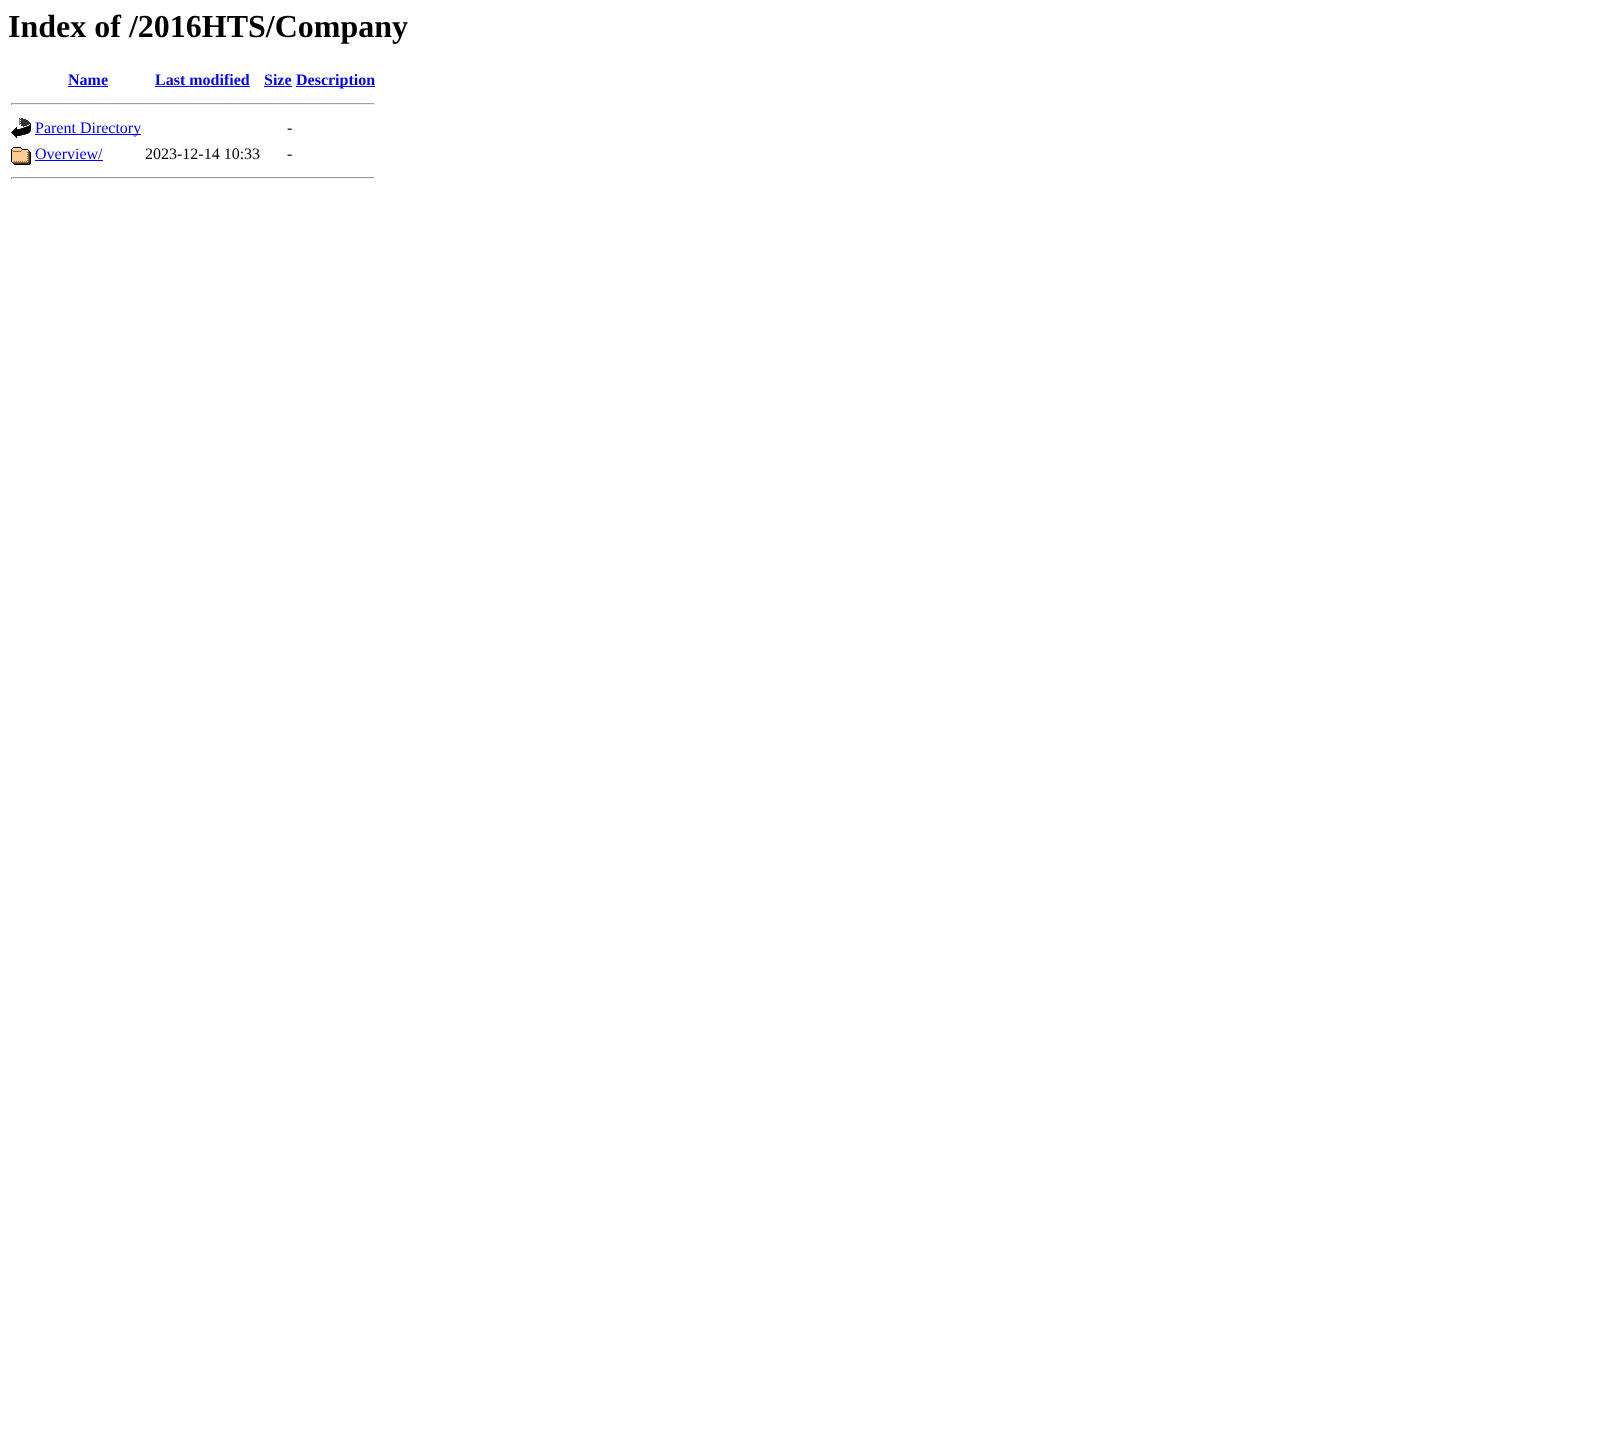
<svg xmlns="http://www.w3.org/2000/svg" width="1604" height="1446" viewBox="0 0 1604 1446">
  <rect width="100%" height="100%" fill="#ffffff"/>
  <text x="8" y="37" font-family="Liberation Serif" font-size="32" font-weight="bold" fill="#000000">Index of /2016HTS/Company</text>
  <text x="68" y="85" font-family="Liberation Serif" font-size="16" font-weight="bold" fill="#0000ee">Name</text>
  <rect x="68" y="86" width="40" height="1" fill="#0000ee"/>
  <text x="155" y="85" font-family="Liberation Serif" font-size="16" font-weight="bold" fill="#0000ee">Last modified</text>
  <rect x="155" y="86" width="95" height="1" fill="#0000ee"/>
  <text x="264" y="85" font-family="Liberation Serif" font-size="16" font-weight="bold" fill="#0000ee">Size</text>
  <rect x="264" y="86" width="28" height="1" fill="#0000ee"/>
  <rect x="296" y="86" width="79" height="1" fill="#0000ee"/>
  <text x="296" y="85" font-family="Liberation Serif" font-size="16" font-weight="bold" fill="#0000ee">Description</text>
  <rect x="11" y="103" width="364" height="1" fill="#9f9f9f"/>
  <rect x="374" y="103" width="1" height="2" fill="#eeeeee"/>
  <rect x="11" y="104" width="364" height="1" fill="#eeeeee"/>
  <rect x="11" y="103" width="1" height="2" fill="#9f9f9f"/>
  <image x="11" y="118" width="20" height="20" href="img1.png"/>
  <rect x="35" y="134" width="106" height="1" fill="#0000ee"/>
  <text x="35" y="133" font-family="Liberation Serif" font-size="16" fill="#0000ee">Parent Directory</text>
  <text x="287" y="133" font-family="Liberation Serif" font-size="16" fill="#000000">-</text>
  <image x="11" y="147" width="20" height="18" href="img2.png"/>
  <text x="35" y="159" font-family="Liberation Serif" font-size="16" fill="#0000ee">Overview/</text>
  <rect x="35" y="160" width="68" height="1" fill="#0000ee"/>
  <text x="145" y="159" font-family="Liberation Serif" font-size="16" fill="#000000">2023-12-14 10:33</text>
  <text x="287" y="159" font-family="Liberation Serif" font-size="16" fill="#000000">-</text>
  <rect x="11" y="177" width="364" height="1" fill="#9f9f9f"/>
  <rect x="374" y="177" width="1" height="2" fill="#eeeeee"/>
  <rect x="11" y="178" width="364" height="1" fill="#eeeeee"/>
  <rect x="11" y="177" width="1" height="2" fill="#9f9f9f"/>
</svg>
